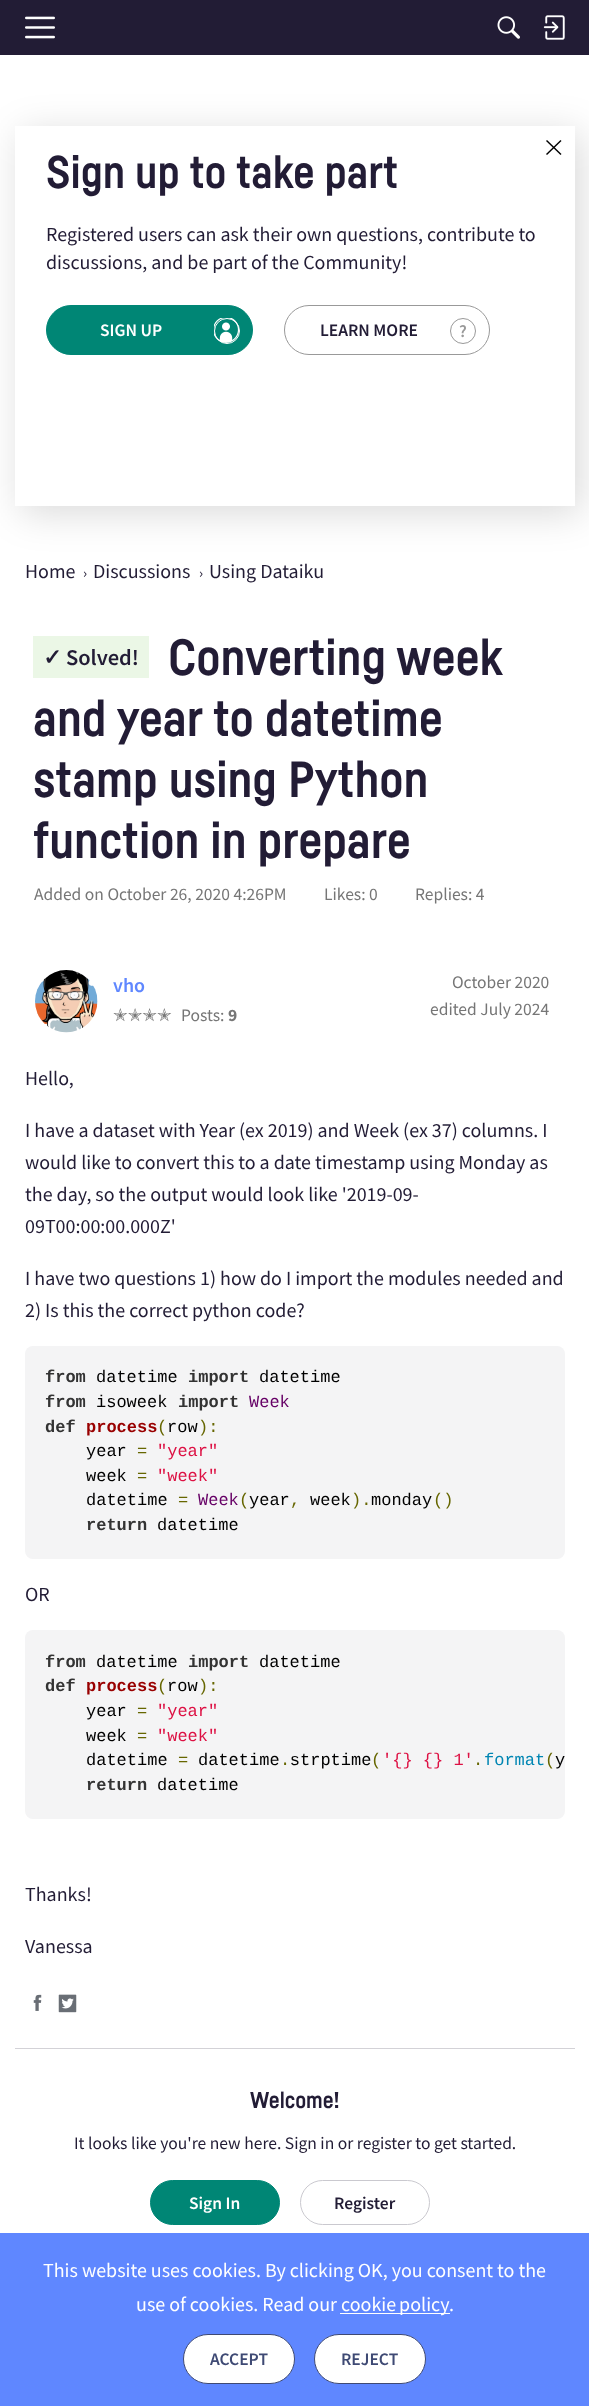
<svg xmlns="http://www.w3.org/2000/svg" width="589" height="2406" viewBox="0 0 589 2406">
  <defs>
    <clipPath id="clip1"><path d="M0 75H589V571H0ZM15 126H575V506H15Z" clip-rule="evenodd"/></clipPath>
    <filter id="blur1" x="-50%" y="-200%" width="200%" height="500%"><feGaussianBlur stdDeviation="19"/></filter>
  </defs>
  <rect width="100%" height="100%" fill="#ffffff"/>
  <rect x="0" y="0" width="589" height="55" fill="#221c35"/>
  <image x="25" y="16" width="30" height="23" href="img1.png"/>
  <image x="497" y="16" width="23" height="23" href="img2.png"/>
  <image x="543" y="15" width="22" height="25" href="img3.png"/>
  <g clip-path="url(#clip1)">
    <rect x="21" y="133" width="560" height="380" fill="#000000" fill-opacity="0.15" filter="url(#blur1)"/>
  </g>
  <path d="M560.5 140L561.5 141L547 155L546 154Z" fill="#000000"/>
  <path d="M546 141L547 140L561.5 154L560.5 155Z" fill="#000000"/>
  <text x="46" y="188" font-family="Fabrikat" font-size="45" font-weight="bold" fill="#221c35">Sign up to take part</text>
  <text x="46" y="241" font-family="Source Sans Pro" font-size="20" fill="#221c35">Registered users can ask their own questions, contribute to</text>
  <text x="46" y="269" font-family="Source Sans Pro" font-size="20" fill="#221c35">discussions, and be part of the Community!</text>
  <rect x="46.5" y="305.5" width="206" height="49" rx="24.5" fill="#008675" stroke="#008675"/>
  <text x="100" y="336" font-family="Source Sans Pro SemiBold" font-size="17.5" font-weight="600" fill="#ffffff">SIGN UP</text>
  <circle cx="227" cy="331" r="12.5" fill="none" stroke="#ffffff"/>
  <image x="214" y="318" width="25" height="25" href="img4.png"/>
  <rect x="284.5" y="305.5" width="205" height="49" rx="24.5" fill="none" stroke="#999999"/>
  <text x="320" y="336" font-family="Source Sans Pro SemiBold" font-size="17.5" font-weight="600" fill="#221c35">LEARN MORE</text>
  <circle cx="463" cy="331" r="12.5" fill="none" stroke="#999999"/>
  <text x="459" y="337" font-family="Source Sans Pro SemiBold" font-size="17.5" font-weight="600" fill="#999999">?</text>
  <text x="25" y="578" font-family="Source Sans Pro" font-size="20" fill="#221c35">Home</text>
  <text x="83" y="578" font-family="Source Sans Pro" font-size="15" fill="#221c35">›</text>
  <text x="93" y="578" font-family="Source Sans Pro" font-size="20" fill="#221c35">Discussions</text>
  <text x="199" y="578" font-family="Source Sans Pro" font-size="15" fill="#221c35">›</text>
  <text x="209" y="578" font-family="Source Sans Pro" font-size="20" fill="#221c35">Using Dataiku</text>
  <rect x="33" y="636" width="116" height="42" fill="#ebf7e6"/>
  <text x="43" y="665" font-family="DejaVu Sans" font-size="22.5" font-weight="bold" fill="#221c35">✓</text>
  <text x="66" y="665" font-family="Source Sans Pro SemiBold" font-size="22.5" font-weight="600" fill="#221c35">Solved!</text>
  <text x="168" y="675" word-spacing="-1" font-family="Fabrikat" font-size="50" font-weight="bold" fill="#221c35">Converting week</text>
  <text x="33" y="736" font-family="Fabrikat" font-size="50" font-weight="bold" fill="#221c35">and year to datetime</text>
  <text x="33" y="797" font-family="Fabrikat" font-size="50" font-weight="bold" fill="#221c35">stamp using Python</text>
  <text x="33" y="858" font-family="Fabrikat" font-size="50" font-weight="bold" fill="#221c35">function in prepare</text>
  <text x="34" y="900" font-family="Source Sans Pro" font-size="17.5" fill="#767676">Added on October 26, 2020 4:26PM</text>
  <text x="324" y="900" font-family="Source Sans Pro" font-size="17.5" fill="#767676">Likes: 0</text>
  <text x="415" y="900" font-family="Source Sans Pro" font-size="17.5" fill="#767676">Replies: 4</text>
  <image x="35" y="970" width="63" height="63" href="img5.png"/>
  <text x="113" y="992" font-family="Source Sans Pro SemiBold" font-size="20" font-weight="600" fill="#5f87ff">vho</text>
  <text x="113" y="1021" font-family="DejaVu Sans" font-size="17.5" fill="#767676">✭✭✭✭</text>
  <text x="181" y="1021" font-family="Source Sans Pro" font-size="17.5" fill="#767676">Posts:</text>
  <text x="228" y="1021" font-family="Source Sans Pro" font-size="17.5" font-weight="bold" fill="#767676">9</text>
  <text x="452" y="988" font-family="Source Sans Pro" font-size="17.5" fill="#767676">October 2020</text>
  <text x="430" y="1015" font-family="Source Sans Pro" font-size="17.5" fill="#767676">edited July 2024</text>
  <text x="25" y="1085" font-family="Source Sans Pro" font-size="20" fill="#221c35">Hello,</text>
  <text x="25" y="1137" font-family="Source Sans Pro" font-size="20" fill="#221c35">I have a dataset with Year (ex 2019) and Week (ex 37) columns. I</text>
  <text x="25" y="1169" font-family="Source Sans Pro" font-size="20" fill="#221c35">would like to convert this to a date timestamp using Monday as</text>
  <text x="25" y="1201" font-family="Source Sans Pro" font-size="20" fill="#221c35">the day, so the output would look like '2019-09-</text>
  <text x="25" y="1233" font-family="Source Sans Pro" font-size="20" fill="#221c35">09T00:00:00.000Z'</text>
  <text x="25" y="1285" font-family="Source Sans Pro" font-size="20" fill="#221c35">I have two questions 1) how do I import the modules needed and</text>
  <text x="25" y="1317" font-family="Source Sans Pro" font-size="20" fill="#221c35">2) Is this the correct python code?</text>
  <rect x="25" y="1346" width="540" height="213" rx="8" fill="#f4f4f5"/>
  <text x="45" y="1382" font-family="Liberation Mono" font-size="17" font-weight="bold" fill="#333333">from</text>
  <text x="96" y="1382" font-family="Liberation Mono" font-size="17" fill="#000000">datetime</text>
  <text x="188" y="1382" font-family="Liberation Mono" font-size="17" font-weight="bold" fill="#333333">import</text>
  <text x="259" y="1382" font-family="Liberation Mono" font-size="17" fill="#000000">datetime</text>
  <text x="45" y="1407" font-family="Liberation Mono" font-size="17" font-weight="bold" fill="#333333">from</text>
  <text x="96" y="1407" font-family="Liberation Mono" font-size="17" fill="#000000">isoweek</text>
  <text x="178" y="1407" font-family="Liberation Mono" font-size="17" font-weight="bold" fill="#333333">import</text>
  <text x="249" y="1407" font-family="Liberation Mono" font-size="17" fill="#660066">Week</text>
  <text x="45" y="1432" font-family="Liberation Mono" font-size="17" font-weight="bold" fill="#333333">def</text>
  <text x="86" y="1432" font-family="Liberation Mono" font-size="17" font-weight="bold" fill="#990000">process</text>
  <text x="157" y="1432" font-family="Liberation Mono" font-size="17" fill="#666600">(</text>
  <text x="167" y="1432" font-family="Liberation Mono" font-size="17" fill="#000000">row</text>
  <text x="198" y="1432" font-family="Liberation Mono" font-size="17" fill="#666600">):</text>
  <text x="86" y="1456" font-family="Liberation Mono" font-size="17" fill="#000000">year</text>
  <text x="137" y="1456" font-family="Liberation Mono" font-size="17" fill="#666600">=</text>
  <text x="157" y="1456" font-family="Liberation Mono" font-size="17" fill="#dd1144">"year"</text>
  <text x="86" y="1481" font-family="Liberation Mono" font-size="17" fill="#000000">week</text>
  <text x="137" y="1481" font-family="Liberation Mono" font-size="17" fill="#666600">=</text>
  <text x="157" y="1481" font-family="Liberation Mono" font-size="17" fill="#dd1144">"week"</text>
  <text x="86" y="1505" font-family="Liberation Mono" font-size="17" fill="#000000">datetime</text>
  <text x="178" y="1505" font-family="Liberation Mono" font-size="17" fill="#666600">=</text>
  <text x="198" y="1505" font-family="Liberation Mono" font-size="17" fill="#660066">Week</text>
  <text x="239" y="1505" font-family="Liberation Mono" font-size="17" fill="#666600">(</text>
  <text x="249" y="1505" font-family="Liberation Mono" font-size="17" fill="#000000">year</text>
  <text x="310" y="1505" font-family="Liberation Mono" font-size="17" fill="#000000">week</text>
  <text x="351" y="1505" font-family="Liberation Mono" font-size="17" fill="#666600">).</text>
  <text x="371" y="1505" font-family="Liberation Mono" font-size="17" fill="#000000">monday</text>
  <text x="433" y="1505" font-family="Liberation Mono" font-size="17" fill="#666600">()</text>
  <text x="290" y="1505" font-family="Liberation Mono" font-size="17" fill="#666600">,</text>
  <text x="86" y="1530" font-family="Liberation Mono" font-size="17" font-weight="bold" fill="#333333">return</text>
  <text x="157" y="1530" font-family="Liberation Mono" font-size="17" fill="#000000">datetime</text>
  <text x="25" y="1601" font-family="Source Sans Pro" font-size="20" fill="#221c35">OR</text>
  <rect x="25" y="1630" width="540" height="189" rx="8" fill="#f4f4f5"/>
  <text x="45" y="1667" font-family="Liberation Mono" font-size="17" font-weight="bold" fill="#333333">from</text>
  <text x="96" y="1667" font-family="Liberation Mono" font-size="17" fill="#000000">datetime</text>
  <text x="188" y="1667" font-family="Liberation Mono" font-size="17" font-weight="bold" fill="#333333">import</text>
  <text x="259" y="1667" font-family="Liberation Mono" font-size="17" fill="#000000">datetime</text>
  <text x="45" y="1691" font-family="Liberation Mono" font-size="17" font-weight="bold" fill="#333333">def</text>
  <text x="86" y="1691" font-family="Liberation Mono" font-size="17" font-weight="bold" fill="#990000">process</text>
  <text x="157" y="1691" font-family="Liberation Mono" font-size="17" fill="#666600">(</text>
  <text x="167" y="1691" font-family="Liberation Mono" font-size="17" fill="#000000">row</text>
  <text x="198" y="1691" font-family="Liberation Mono" font-size="17" fill="#666600">):</text>
  <text x="86" y="1716" font-family="Liberation Mono" font-size="17" fill="#000000">year</text>
  <text x="137" y="1716" font-family="Liberation Mono" font-size="17" fill="#666600">=</text>
  <text x="157" y="1716" font-family="Liberation Mono" font-size="17" fill="#dd1144">"year"</text>
  <text x="86" y="1741" font-family="Liberation Mono" font-size="17" fill="#000000">week</text>
  <text x="137" y="1741" font-family="Liberation Mono" font-size="17" fill="#666600">=</text>
  <text x="157" y="1741" font-family="Liberation Mono" font-size="17" fill="#dd1144">"week"</text>
  <text x="86" y="1765" font-family="Liberation Mono" font-size="17" fill="#000000">datetime</text>
  <text x="178" y="1765" font-family="Liberation Mono" font-size="17" fill="#666600">=</text>
  <text x="198" y="1765" font-family="Liberation Mono" font-size="17" fill="#000000">datetime strptime</text>
  <text x="371" y="1765" font-family="Liberation Mono" font-size="17" fill="#666600">(</text>
  <text x="382" y="1765" font-family="Liberation Mono" font-size="17" fill="#dd1144">'{} {} 1'</text>
  <text x="484" y="1765" font-family="Liberation Mono" font-size="17" fill="#0086b3">format</text>
  <text x="545" y="1765" font-family="Liberation Mono" font-size="17" fill="#666600">(</text>
  <text x="555" y="1765" font-family="Liberation Mono" font-size="17" fill="#000000">y</text>
  <text x="280" y="1765" font-family="Liberation Mono" font-size="17" fill="#666600">.</text>
  <text x="473" y="1765" font-family="Liberation Mono" font-size="17" fill="#666600">.</text>
  <text x="86" y="1790" font-family="Liberation Mono" font-size="17" font-weight="bold" fill="#333333">return</text>
  <text x="157" y="1790" font-family="Liberation Mono" font-size="17" fill="#000000">datetime</text>
  <text x="25" y="1901" font-family="Source Sans Pro" font-size="20" fill="#221c35">Thanks!</text>
  <text x="25" y="1953" font-family="Source Sans Pro" font-size="20" fill="#221c35">Vanessa</text>
  <image x="33" y="1994" width="9" height="17" href="img6.png"/>
  <image x="58" y="1994" width="19" height="19" href="img7.png"/>
  <rect x="15" y="2048" width="560" height="1" fill="#d3d2d7"/>
  <text x="250" y="2108" font-family="Fabrikat" font-size="22.5" font-weight="bold" fill="#221c35">Welcome!</text>
  <text x="74" y="2149" font-family="Source Sans Pro" font-size="17.5" fill="#221c35">It looks like you're new here. Sign in or register to get started.</text>
  <rect x="150.5" y="2180.5" width="129" height="44" rx="22" fill="#008675" stroke="#008675"/>
  <text x="189" y="2209" font-family="Source Sans Pro SemiBold" font-size="17.5" font-weight="600" fill="#ffffff">Sign In</text>
  <rect x="300.5" y="2180.5" width="129" height="44" rx="22" fill="none" stroke="#cac9cf"/>
  <text x="334" y="2209" font-family="Source Sans Pro SemiBold" font-size="17.5" font-weight="600" fill="#221c35">Register</text>
  <rect x="0" y="2233" width="589" height="173" fill="#5f87ff"/>
  <text x="43" y="2277" font-family="Source Sans Pro" font-size="20" fill="#ffffff">This website uses cookies. By clicking OK, you consent to the</text>
  <text x="136" y="2311" font-family="Source Sans Pro" font-size="20" fill="#ffffff">use of cookies. Read our</text>
  <rect x="340" y="2313" width="110" height="1" fill="#ffffff"/>
  <text x="341" y="2311" word-spacing="-1" font-family="Source Sans Pro" font-size="20" fill="#ffffff">cookie policy</text>
  <text x="449" y="2311" font-family="Source Sans Pro" font-size="20" fill="#ffffff">.</text>
  <rect x="183.5" y="2334.5" width="111" height="49" rx="24.5" fill="#ffffff" stroke="#3f4a74"/>
  <text x="210" y="2365" font-family="Source Sans Pro SemiBold" font-size="17.5" font-weight="600" fill="#3f4a74">ACCEPT</text>
  <rect x="314.5" y="2334.5" width="111" height="49" rx="24.5" fill="#ffffff" stroke="#3f4a74"/>
  <text x="341" y="2365" font-family="Source Sans Pro SemiBold" font-size="17.5" font-weight="600" fill="#3f4a74">REJECT</text>
</svg>
